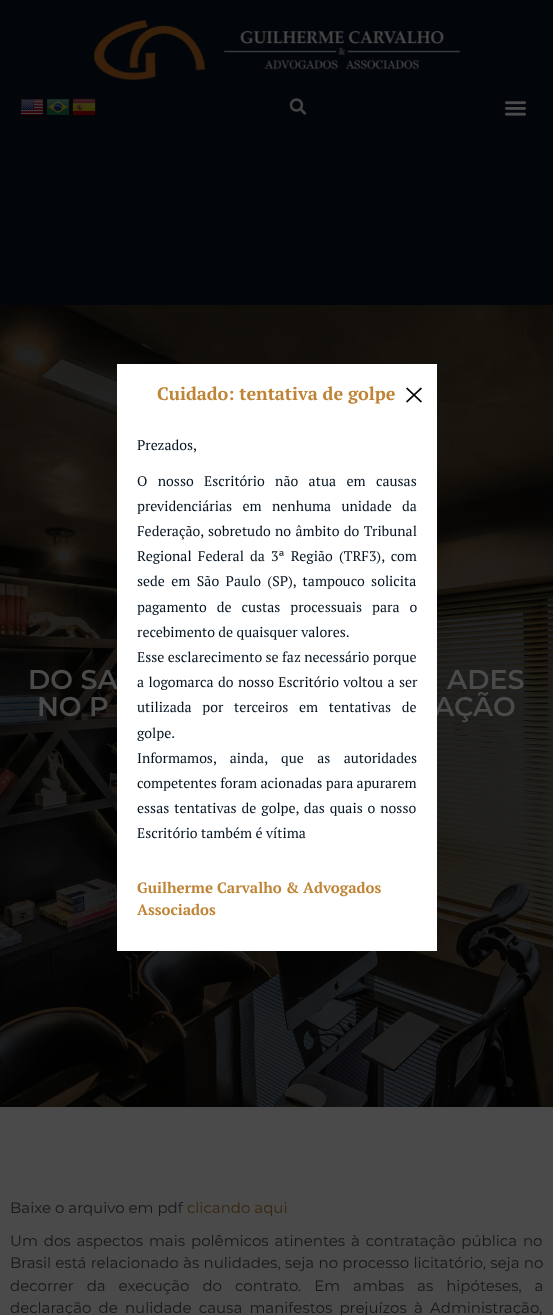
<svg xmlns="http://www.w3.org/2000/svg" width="553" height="1315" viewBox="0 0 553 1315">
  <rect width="100%" height="100%" fill="#02060a"/>
  <image x="93" y="20" width="367" height="60" href="img1.png"/>
  <image x="21" y="99" width="22" height="17" href="img2.png"/>
  <image x="47" y="99" width="22" height="17" href="img3.png"/>
  <image x="72" y="98" width="24" height="18" href="img4.png"/>
  <image x="289" y="98" width="18" height="17" href="img5.png"/>
  <image x="505" y="101" width="21" height="15" href="img6.png"/>
  <image x="0" y="305" width="553" height="802" href="img8.png"/>
  <text x="28" y="689" font-family="Montserrat" font-size="27" font-weight="600" fill="#4a4a4a">DO SA</text>
  <text x="434" y="716" font-family="Montserrat" font-size="27" font-weight="600" fill="#4a4a4a">AÇÃO</text>
  <rect x="117" y="364" width="320" height="587" fill="#ffffff"/>
  <text x="157" y="400" font-family="PT Serif" font-size="18" font-weight="bold" fill="#bf8435">Cuidado: tentativa de golpe</text>
  <image x="406" y="387" width="16" height="16" href="img7.png"/>
  <text x="137" y="450" font-family="PT Serif" font-size="14" fill="#061421">Prezados,</text>
  <text x="137" y="486" word-spacing="7" font-family="PT Serif" font-size="14" fill="#061421">O nosso Escritório não atua em causas</text>
  <text x="137" y="511" word-spacing="7" font-family="PT Serif" font-size="14" fill="#061421">previdenciárias em nenhuma unidade da</text>
  <text x="137" y="536" word-spacing="1" font-family="PT Serif" font-size="14" fill="#061421">Federação, sobretudo no âmbito do Tribunal</text>
  <text x="137" y="561" word-spacing="2.75" font-family="PT Serif" font-size="14" fill="#061421">Regional Federal da 3ª Região (TRF3), com</text>
  <text x="137" y="586" word-spacing="3" font-family="PT Serif" font-size="14" fill="#061421">sede em São Paulo (SP), tampouco solicita</text>
  <text x="137" y="612" word-spacing="6.5" font-family="PT Serif" font-size="14" fill="#061421">pagamento de custas processuais para o</text>
  <text x="137" y="637" font-family="PT Serif" font-size="14" fill="#061421">recebimento de quaisquer valores.</text>
  <text x="137" y="662" font-family="PT Serif" font-size="14" fill="#061421">Esse esclarecimento se faz necessário porque</text>
  <text x="137" y="687" word-spacing="1" font-family="PT Serif" font-size="14" fill="#061421">a logomarca do nosso Escritório voltou a ser</text>
  <text x="137" y="712" word-spacing="7.25" font-family="PT Serif" font-size="14" fill="#061421">utilizada por terceiros em tentativas de</text>
  <text x="137" y="738" font-family="PT Serif" font-size="14" fill="#061421">golpe.</text>
  <text x="137" y="763" word-spacing="10" font-family="PT Serif" font-size="14" fill="#061421">Informamos, ainda, que as autoridades</text>
  <text x="137" y="788" font-family="PT Serif" font-size="14" fill="#061421">competentes foram acionadas para apurarem</text>
  <text x="137" y="813" word-spacing="1.5" font-family="PT Serif" font-size="14" fill="#061421">essas tentativas de golpe, das quais o nosso</text>
  <text x="137" y="838" font-family="PT Serif" font-size="14" fill="#061421">Escritório também é vítima</text>
  <text x="137" y="893" font-family="PT Serif" font-size="15" font-weight="bold" fill="#bf8435">Guilherme Carvalho &amp; Advogados</text>
  <text x="137" y="915" font-family="PT Serif" font-size="15" font-weight="bold" fill="#bf8435">Associados</text>
  <text x="447" y="689" font-family="Montserrat" font-size="27" font-weight="600" fill="#4a4a4a">ADES</text>
  <text x="37" y="716" font-family="Montserrat" font-size="27" font-weight="600" fill="#4a4a4a">NO P</text>
  <rect x="0" y="1107" width="553" height="208" fill="#4a4a4a"/>
  <text x="10" y="1213" font-family="Montserrat" font-size="15" fill="#171717">Baixe o arquivo em pdf</text>
  <text x="187" y="1213" font-family="Montserrat" font-size="15" fill="#37260f">clicando aqui</text>
  <text x="10" y="1246" word-spacing="2" font-family="Montserrat" font-size="15" fill="#171717">Um dos aspectos mais polêmicos atinentes à contratação pública no</text>
  <text x="10" y="1268" word-spacing="0.4" font-family="Montserrat" font-size="15" fill="#171717">Brasil está relacionado às nulidades, seja no processo licitatório, seja no</text>
  <text x="10" y="1291" word-spacing="9" font-family="Montserrat" font-size="15" fill="#171717">decorrer da execução do contrato. Em ambas as hipóteses, a</text>
  <text x="10" y="1313" word-spacing="3.25" font-family="Montserrat" font-size="15" fill="#171717">declaração de nulidade causa manifestos prejuízos à Administração,</text>
</svg>
